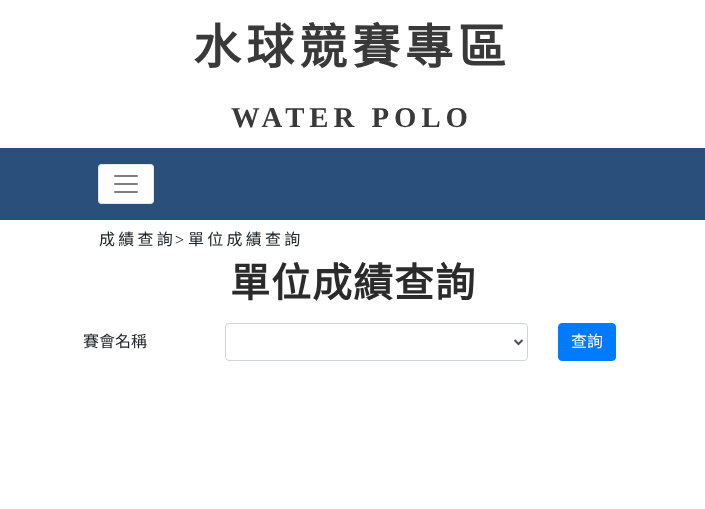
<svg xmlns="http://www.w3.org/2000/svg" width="705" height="509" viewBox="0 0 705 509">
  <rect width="100%" height="100%" fill="#ffffff"/>
  <text x="193" y="64" font-family="Noto Sans CJK TC" font-size="48" font-weight="bold" letter-spacing="5" fill="#3a3939">水球競賽專區</text>
  <text x="231" y="127" font-family="Liberation Serif" font-size="28.75" font-weight="bold" letter-spacing="5" fill="#3a3939">WATER POLO</text>
  <rect x="0" y="148" width="705" height="72" fill="#2b4f7b"/>
  <rect x="98" y="164" width="56" height="40" rx="4" fill="#ffffff"/>
  <rect x="98.5" y="164.5" width="55" height="39" rx="3.5" fill="none" stroke="#000000" stroke-opacity="0.1"/>
  <image x="114" y="175" width="24" height="18" href="img1.png"/>
  <text x="99" y="245" font-family="Noto Sans CJK TC" font-size="16" letter-spacing="3.25" fill="#212529">成績查詢</text>
  <text x="175" y="245" font-family="Liberation Serif" font-size="16" letter-spacing="3.25" fill="#212529">&gt;</text>
  <text x="188" y="245" font-family="Noto Sans CJK TC" font-size="16" letter-spacing="3.25" fill="#212529">單位成績查詢</text>
  <text x="230" y="297" font-family="Noto Sans CJK TC" font-size="40" font-weight="bold" letter-spacing="1" fill="#2b2b2b">單位成績查詢</text>
  <text x="83" y="347" font-family="Noto Sans CJK TC" font-size="16" fill="#212529">賽會名稱</text>
  <rect x="225.5" y="323.5" width="302" height="37" rx="3.5" fill="none" stroke="#ced4da"/>
  <path d="M514.5 340L518.5 344L522.5 340" fill="none" stroke="#495057" stroke-width="2"/>
  <rect x="558.5" y="323.5" width="57" height="37" rx="3.5" fill="#007bff" stroke="#007bff"/>
  <text x="571" y="347" font-family="Noto Sans CJK TC" font-size="16" fill="#ffffff">查詢</text>
</svg>
